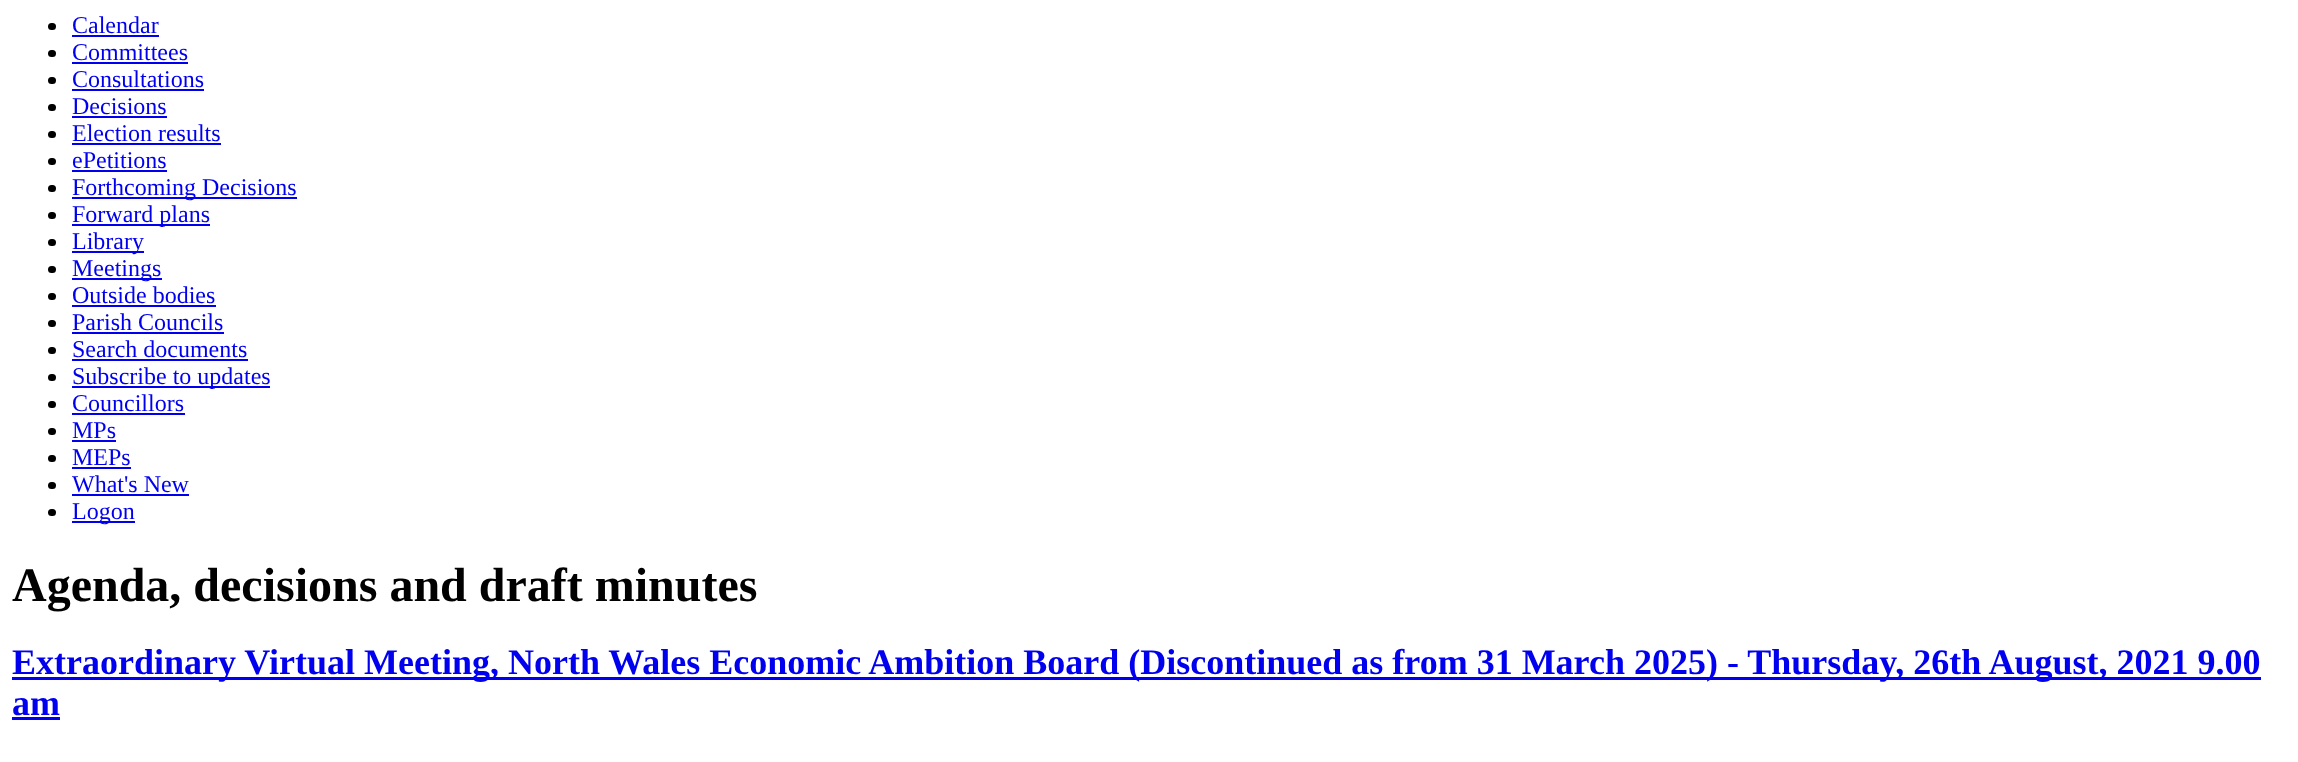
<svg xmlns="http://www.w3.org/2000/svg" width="2298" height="762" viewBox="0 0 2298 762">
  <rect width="100%" height="100%" fill="#ffffff"/>
  <rect x="48" y="23" width="8" height="7" rx="3.5" fill="#000000"/>
  <text x="72" y="33" font-family="Liberation Serif" font-size="24" fill="#0000ee">Calendar</text>
  <rect x="72" y="35" width="87" height="2" fill="#0000ee"/>
  <rect x="48" y="50" width="8" height="7" rx="3.5" fill="#000000"/>
  <text x="72" y="60" font-family="Liberation Serif" font-size="24" fill="#0000ee">Committees</text>
  <rect x="72" y="62" width="116" height="2" fill="#0000ee"/>
  <rect x="48" y="77" width="8" height="7" rx="3.5" fill="#000000"/>
  <text x="72" y="87" font-family="Liberation Serif" font-size="24" fill="#0000ee">Consultations</text>
  <rect x="72" y="89" width="132" height="2" fill="#0000ee"/>
  <rect x="48" y="104" width="8" height="7" rx="3.5" fill="#000000"/>
  <text x="72" y="114" font-family="Liberation Serif" font-size="24" fill="#0000ee">Decisions</text>
  <rect x="72" y="116" width="95" height="2" fill="#0000ee"/>
  <rect x="48" y="131" width="8" height="7" rx="3.5" fill="#000000"/>
  <text x="72" y="141" font-family="Liberation Serif" font-size="24" fill="#0000ee">Election results</text>
  <rect x="72" y="143" width="149" height="2" fill="#0000ee"/>
  <rect x="48" y="158" width="8" height="7" rx="3.5" fill="#000000"/>
  <text x="72" y="168" font-family="Liberation Serif" font-size="24" fill="#0000ee">ePetitions</text>
  <rect x="72" y="170" width="95" height="2" fill="#0000ee"/>
  <rect x="48" y="185" width="8" height="7" rx="3.5" fill="#000000"/>
  <rect x="72" y="197" width="225" height="2" fill="#0000ee"/>
  <text x="72" y="195" font-family="Liberation Serif" font-size="24" fill="#0000ee">Forthcoming Decisions</text>
  <rect x="48" y="212" width="8" height="7" rx="3.5" fill="#000000"/>
  <rect x="72" y="224" width="138" height="2" fill="#0000ee"/>
  <text x="72" y="222" font-family="Liberation Serif" font-size="24" fill="#0000ee">Forward plans</text>
  <rect x="48" y="239" width="8" height="7" rx="3.5" fill="#000000"/>
  <rect x="72" y="251" width="72" height="2" fill="#0000ee"/>
  <text x="72" y="249" font-family="Liberation Serif" font-size="24" fill="#0000ee">Library</text>
  <rect x="48" y="266" width="8" height="7" rx="3.5" fill="#000000"/>
  <rect x="72" y="278" width="90" height="2" fill="#0000ee"/>
  <text x="72" y="276" font-family="Liberation Serif" font-size="24" fill="#0000ee">Meetings</text>
  <rect x="48" y="293" width="8" height="7" rx="3.5" fill="#000000"/>
  <text x="72" y="303" font-family="Liberation Serif" font-size="24" fill="#0000ee">Outside bodies</text>
  <rect x="72" y="305" width="144" height="2" fill="#0000ee"/>
  <rect x="48" y="320" width="8" height="7" rx="3.5" fill="#000000"/>
  <text x="72" y="330" font-family="Liberation Serif" font-size="24" fill="#0000ee">Parish Councils</text>
  <rect x="72" y="332" width="152" height="2" fill="#0000ee"/>
  <rect x="48" y="347" width="8" height="7" rx="3.5" fill="#000000"/>
  <text x="72" y="357" font-family="Liberation Serif" font-size="24" fill="#0000ee">Search documents</text>
  <rect x="72" y="359" width="176" height="2" fill="#0000ee"/>
  <rect x="48" y="374" width="8" height="7" rx="3.5" fill="#000000"/>
  <rect x="72" y="386" width="198" height="2" fill="#0000ee"/>
  <text x="72" y="384" font-family="Liberation Serif" font-size="24" fill="#0000ee">Subscribe to updates</text>
  <rect x="48" y="401" width="8" height="7" rx="3.5" fill="#000000"/>
  <text x="72" y="411" font-family="Liberation Serif" font-size="24" fill="#0000ee">Councillors</text>
  <rect x="72" y="413" width="113" height="2" fill="#0000ee"/>
  <rect x="48" y="428" width="8" height="7" rx="3.5" fill="#000000"/>
  <text x="72" y="438" font-family="Liberation Serif" font-size="24" fill="#0000ee">MPs</text>
  <rect x="72" y="440" width="44" height="2" fill="#0000ee"/>
  <rect x="48" y="455" width="8" height="7" rx="3.5" fill="#000000"/>
  <text x="72" y="465" font-family="Liberation Serif" font-size="24" fill="#0000ee">MEPs</text>
  <rect x="72" y="467" width="59" height="2" fill="#0000ee"/>
  <rect x="48" y="482" width="8" height="7" rx="3.5" fill="#000000"/>
  <text x="72" y="492" font-family="Liberation Serif" font-size="24" fill="#0000ee">What's New</text>
  <rect x="72" y="494" width="117" height="2" fill="#0000ee"/>
  <rect x="48" y="509" width="8" height="7" rx="3.5" fill="#000000"/>
  <rect x="72" y="521" width="63" height="2" fill="#0000ee"/>
  <text x="72" y="519" font-family="Liberation Serif" font-size="24" fill="#0000ee">Logon</text>
  <text x="12" y="601" font-family="Liberation Serif" font-size="48" font-weight="bold" fill="#000000">Agenda, decisions and draft minutes</text>
  <rect x="12" y="677" width="2249" height="3" fill="#0000ee"/>
  <text x="12" y="674" font-family="Liberation Serif" font-size="36" font-weight="bold" fill="#0000ee">Extraordinary Virtual Meeting, North Wales Economic Ambition Board (Discontinued as from 31 March 2025) - Thursday, 26th August, 2021 9.00</text>
  <text x="12" y="715" font-family="Liberation Serif" font-size="36" font-weight="bold" fill="#0000ee">am</text>
  <rect x="12" y="717" width="48" height="3" fill="#0000ee"/>
</svg>
